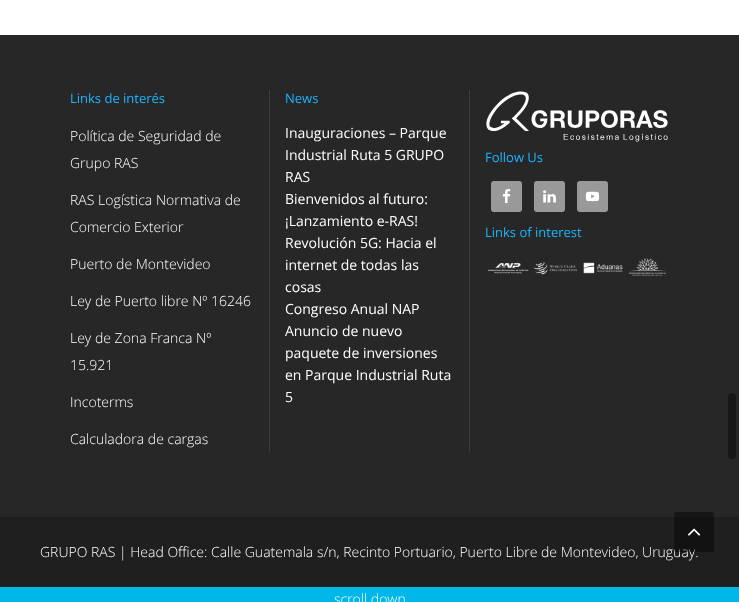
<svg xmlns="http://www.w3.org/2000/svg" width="739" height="602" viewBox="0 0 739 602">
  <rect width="100%" height="100%" fill="#ffffff"/>
  <rect x="0" y="35" width="739" height="482" fill="#272727"/>
  <text x="70" y="103" font-family="Open Sans" font-size="13" fill="#19b6ff">Links de interés</text>
  <text x="70" y="141" font-family="Open Sans" font-size="14" font-weight="300" fill="#ffffff">Política de Seguridad de</text>
  <text x="70" y="168" font-family="Open Sans" font-size="14" font-weight="300" fill="#ffffff">Grupo RAS</text>
  <text x="70" y="205" font-family="Open Sans" font-size="14" font-weight="300" fill="#ffffff">RAS Logística Normativa de</text>
  <text x="70" y="232" font-family="Open Sans" font-size="14" font-weight="300" fill="#ffffff">Comercio Exterior</text>
  <text x="70" y="269" font-family="Open Sans" font-size="14" font-weight="300" fill="#ffffff">Puerto de Montevideo</text>
  <text x="70" y="306" font-family="Open Sans" font-size="14" font-weight="300" fill="#ffffff">Ley de Puerto libre Nº 16246</text>
  <text x="70" y="343" font-family="Open Sans" font-size="14" font-weight="300" fill="#ffffff">Ley de Zona Franca Nº</text>
  <text x="70" y="370" font-family="Open Sans" font-size="14" font-weight="300" fill="#ffffff">15.921</text>
  <text x="70" y="407" font-family="Open Sans" font-size="14" font-weight="300" fill="#ffffff">Incoterms</text>
  <text x="70" y="444" font-family="Open Sans" font-size="14" font-weight="300" fill="#ffffff">Calculadora de cargas</text>
  <rect x="269" y="90" width="1" height="362" fill="#3d3d3d"/>
  <text x="285" y="103" font-family="Open Sans" font-size="13" fill="#19b6ff">News</text>
  <text x="285" y="138" font-family="Open Sans" font-size="14" fill="#ffffff">Inauguraciones – Parque</text>
  <text x="285" y="160" font-family="Open Sans" font-size="14" fill="#ffffff">Industrial Ruta 5 GRUPO</text>
  <text x="285" y="182" font-family="Open Sans" font-size="14" fill="#ffffff">RAS</text>
  <text x="285" y="204" font-family="Open Sans" font-size="14" fill="#ffffff">Bienvenidos al futuro:</text>
  <text x="285" y="226" font-family="Open Sans" font-size="14" fill="#ffffff">¡Lanzamiento e-RAS!</text>
  <text x="285" y="248" font-family="Open Sans" font-size="14" fill="#ffffff">Revolución 5G: Hacia el</text>
  <text x="285" y="270" font-family="Open Sans" font-size="14" fill="#ffffff">internet de todas las</text>
  <text x="285" y="292" font-family="Open Sans" font-size="14" fill="#ffffff">cosas</text>
  <text x="285" y="314" font-family="Open Sans" font-size="14" fill="#ffffff">Congreso Anual NAP</text>
  <text x="285" y="336" font-family="Open Sans" font-size="14" fill="#ffffff">Anuncio de nuevo</text>
  <text x="285" y="358" font-family="Open Sans" font-size="14" fill="#ffffff">paquete de inversiones</text>
  <text x="285" y="380" font-family="Open Sans" font-size="14" fill="#ffffff">en Parque Industrial Ruta</text>
  <text x="285" y="402" font-family="Open Sans" font-size="14" fill="#ffffff">5</text>
  <rect x="469" y="90" width="1" height="362" fill="#3d3d3d"/>
  <image x="486" y="91" width="182" height="51" href="img1.png"/>
  <text x="485" y="162" font-family="Open Sans" font-size="13" fill="#19b6ff">Follow Us</text>
  <rect x="491" y="181" width="31" height="31" rx="3" fill="#999999"/>
  <image x="502" y="189" width="9" height="14" href="img2.png"/>
  <rect x="534" y="181" width="31" height="31" rx="3" fill="#999999"/>
  <image x="543" y="190" width="13" height="13" href="img3.png"/>
  <rect x="577" y="181" width="31" height="31" rx="3" fill="#999999"/>
  <image x="585" y="191" width="15" height="11" href="img4.png"/>
  <text x="485" y="237" font-family="Open Sans" font-size="13" fill="#19b6ff">Links of interest</text>
  <image x="487" y="258" width="179" height="18" href="img5.png"/>
  <rect x="0" y="517" width="739" height="70" fill="#1f1f1f"/>
  <text x="40" y="557" font-family="Open Sans" font-size="14" font-weight="300" fill="#ffffff">GRUPO RAS | Head Office: Calle Guatemala s/n, Recinto Portuario, Puerto Libre de Montevideo, Uruguay.</text>
  <rect x="674" y="512" width="40" height="40" rx="2" fill="#000000" fill-opacity="0.4"/>
  <image x="688" y="528" width="13" height="8" href="img6.png"/>
  <rect x="728" y="393" width="8" height="66" rx="4" fill="#171717"/>
  <rect x="0" y="587" width="739" height="15" fill="#00b7ea"/>
  <text x="334" y="604" font-family="Open Sans" font-size="14" font-weight="300" fill="#ffffff">scroll down</text>
</svg>
